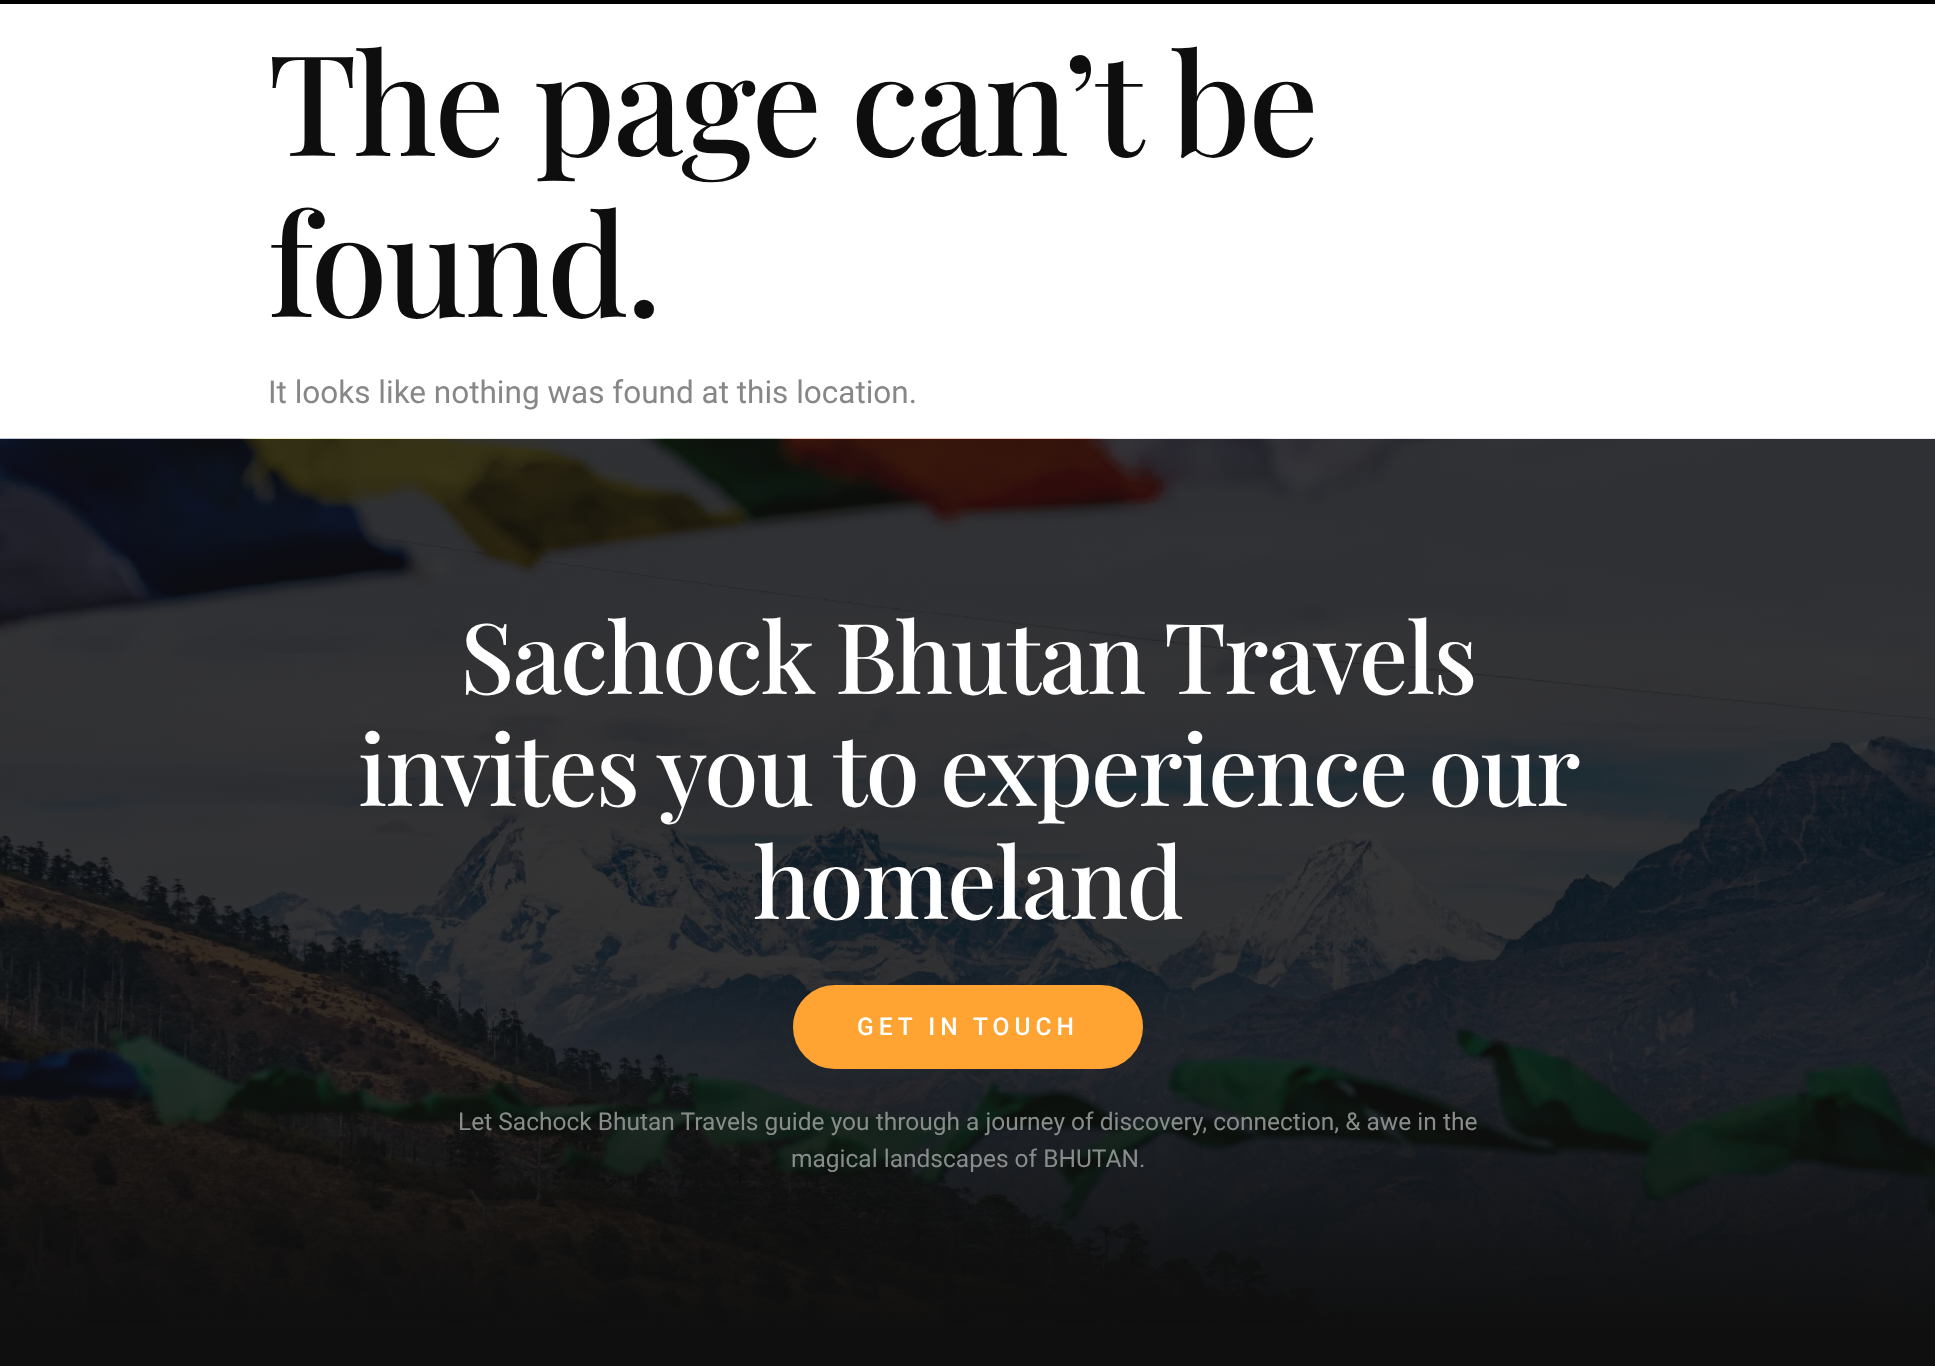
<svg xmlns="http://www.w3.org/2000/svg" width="1935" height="1366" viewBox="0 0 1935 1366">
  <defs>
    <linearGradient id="g1" gradientUnits="userSpaceOnUse" x1="968" y1="439" x2="968" y2="1332"><stop offset="0.7" stop-color="#0f0f0f" stop-opacity="0.79"/><stop offset="1" stop-color="#0f0f0f"/></linearGradient>
  </defs>
  <rect width="100%" height="100%" fill="#ffffff"/>
  <rect x="0" y="0" width="1935" height="4" fill="#000000"/>
  <text x="268" y="156" font-family="Playfair Display" font-size="140" font-weight="500" letter-spacing="-2.75" fill="#0e0e0e">The page can’t be</text>
  <text x="268" y="317" font-family="Playfair Display" font-size="140" font-weight="500" letter-spacing="-2.75" fill="#0e0e0e">found.</text>
  <text x="268" y="403" font-family="Roboto" font-size="31.5" fill="#878787">It looks like nothing was found at this location.</text>
  <image x="0" y="438" width="1935" height="887" href="img1.png"/>
  <rect x="0" y="439" width="1935" height="893" fill="url(#g1)"/>
  <text x="460" y="694" font-family="Playfair Display" font-size="98" font-weight="500" letter-spacing="-1.95" fill="#ffffff">Sachock Bhutan Travels</text>
  <text x="358" y="806" font-family="Playfair Display" font-size="98" font-weight="500" letter-spacing="-1.95" fill="#ffffff">invites you to experience our</text>
  <text x="753" y="919" font-family="Playfair Display" font-size="98" font-weight="500" letter-spacing="-1.95" fill="#ffffff">homeland</text>
  <rect x="794" y="986" width="348" height="82" rx="41" fill="#ffa433" stroke="#ffa433" stroke-width="2"/>
  <text x="857" y="1035" font-family="Roboto" font-size="24.5" font-weight="500" letter-spacing="5" fill="#ffffff">GET IN</text>
  <text x="973" y="1035" font-family="Roboto" font-size="24.5" font-weight="500" letter-spacing="5" fill="#ffffff">TOUCH</text>
  <text x="458" y="1130" font-family="Roboto" font-size="24.5" fill="#888d8b">Let Sachock Bhutan Travels guide you through a journey of discovery, connection, &amp; awe in the</text>
  <text x="791" y="1167" font-family="Roboto" font-size="24.5" fill="#888d8b">magical landscapes of BHUTAN.</text>
  <rect x="0" y="1332" width="1935" height="34" fill="#0f0f0f"/>
</svg>
